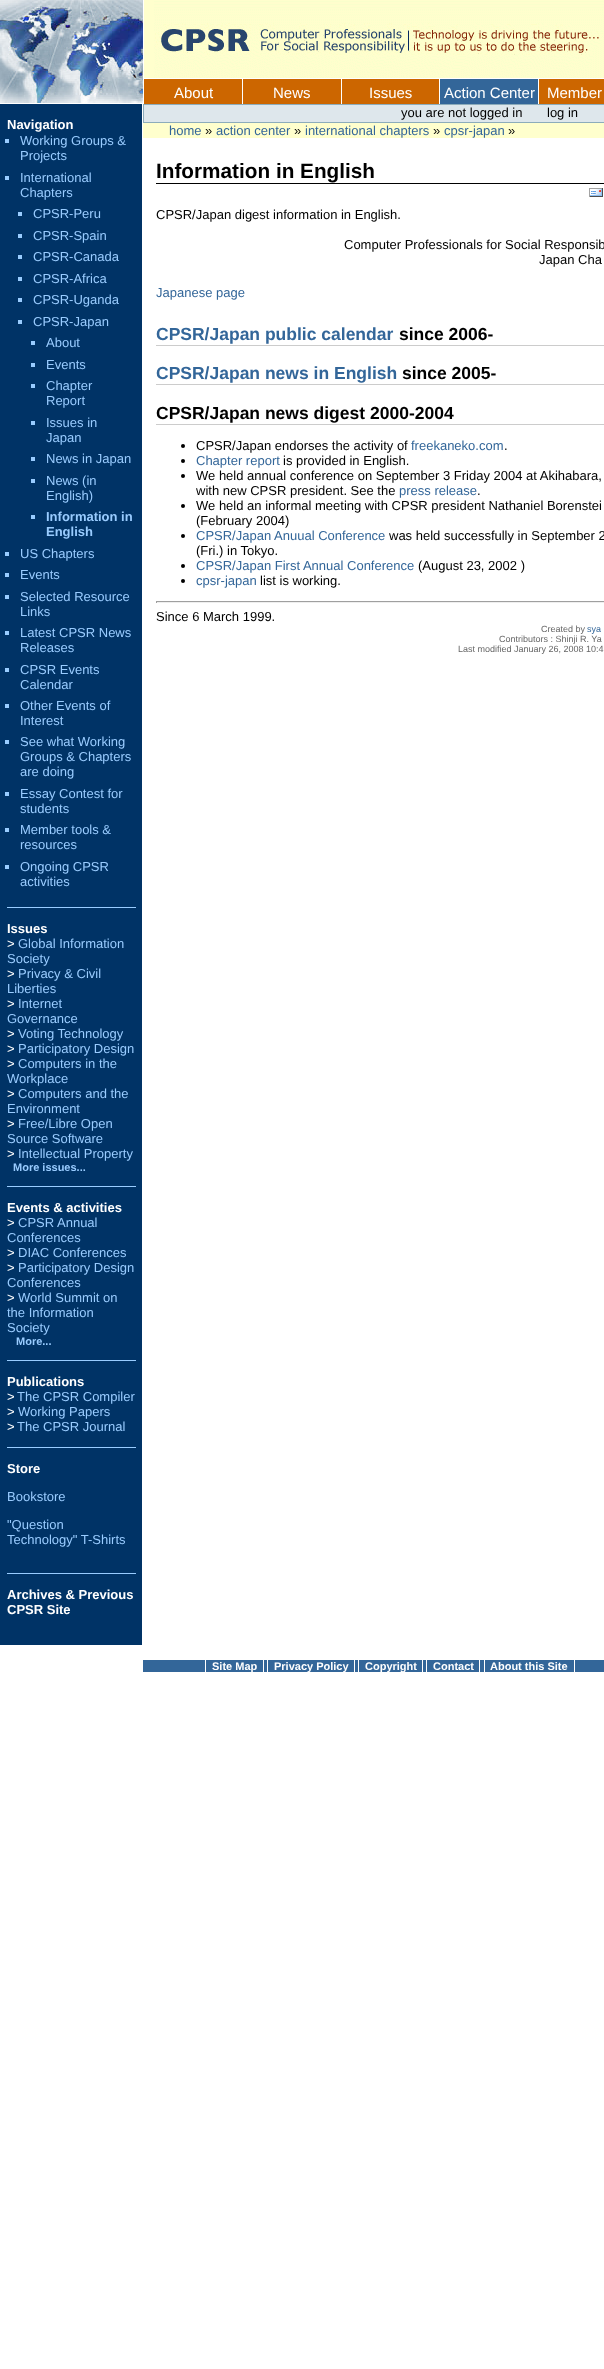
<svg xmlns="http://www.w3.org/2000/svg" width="604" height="2369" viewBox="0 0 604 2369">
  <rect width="100%" height="100%" fill="#ffffff"/>
  <rect x="144" y="0" width="460" height="78" fill="#ffffcd"/>
  <image x="0" y="0" width="143" height="103" href="img1.png"/>
  <image x="154" y="1" width="450" height="77" href="img2.png"/>
  <rect x="144" y="79" width="98" height="25" fill="#cc6600"/>
  <text x="174" y="98" font-family="Liberation Sans" font-size="15" fill="#ffffff">About</text>
  <rect x="243" y="79" width="98" height="25" fill="#cc6600"/>
  <text x="273" y="98" font-family="Liberation Sans" font-size="15" fill="#ffffff">News</text>
  <rect x="342" y="79" width="97" height="25" fill="#cc6600"/>
  <text x="369" y="98" font-family="Liberation Sans" font-size="15" fill="#ffffff">Issues</text>
  <rect x="440" y="79" width="98" height="25" fill="#336699"/>
  <text x="444" y="98" font-family="Liberation Sans" font-size="15" fill="#ffffff">Action Center</text>
  <rect x="539" y="79" width="65" height="25" fill="#cc6600"/>
  <text x="547" y="98" font-family="Liberation Sans" font-size="15" fill="#ffffff">Member</text>
  <rect x="0" y="104" width="142" height="1541" fill="#003366"/>
  <rect x="7" y="907" width="129" height="1" fill="#99ccff"/>
  <text x="7" y="129" font-family="Liberation Sans" font-size="13" font-weight="bold" fill="#ffffff">Navigation</text>
  <rect x="5" y="139" width="4" height="4" fill="#99ccff"/>
  <text x="20" y="145" font-family="Liberation Sans" font-size="13" fill="#99ccff">Working Groups &amp;</text>
  <text x="20" y="160" font-family="Liberation Sans" font-size="13" fill="#99ccff">Projects</text>
  <rect x="5" y="176" width="4" height="4" fill="#99ccff"/>
  <text x="20" y="182" font-family="Liberation Sans" font-size="13" fill="#99ccff">International</text>
  <text x="20" y="197" font-family="Liberation Sans" font-size="13" fill="#99ccff">Chapters</text>
  <rect x="18" y="212" width="4" height="4" fill="#99ccff"/>
  <text x="33" y="218" font-family="Liberation Sans" font-size="13" fill="#99ccff">CPSR-Peru</text>
  <rect x="18" y="234" width="4" height="4" fill="#99ccff"/>
  <text x="33" y="240" font-family="Liberation Sans" font-size="13" fill="#99ccff">CPSR-Spain</text>
  <rect x="18" y="255" width="4" height="4" fill="#99ccff"/>
  <text x="33" y="261" font-family="Liberation Sans" font-size="13" fill="#99ccff">CPSR-Canada</text>
  <rect x="18" y="277" width="4" height="4" fill="#99ccff"/>
  <text x="33" y="283" font-family="Liberation Sans" font-size="13" fill="#99ccff">CPSR-Africa</text>
  <rect x="18" y="298" width="4" height="4" fill="#99ccff"/>
  <text x="33" y="304" font-family="Liberation Sans" font-size="13" fill="#99ccff">CPSR-Uganda</text>
  <rect x="18" y="320" width="4" height="4" fill="#99ccff"/>
  <text x="33" y="326" font-family="Liberation Sans" font-size="13" fill="#99ccff">CPSR-Japan</text>
  <rect x="31" y="341" width="4" height="4" fill="#99ccff"/>
  <text x="46" y="347" font-family="Liberation Sans" font-size="13" fill="#99ccff">About</text>
  <rect x="31" y="363" width="4" height="4" fill="#99ccff"/>
  <text x="46" y="369" font-family="Liberation Sans" font-size="13" fill="#99ccff">Events</text>
  <rect x="31" y="384" width="4" height="4" fill="#99ccff"/>
  <text x="46" y="390" font-family="Liberation Sans" font-size="13" fill="#99ccff">Chapter</text>
  <text x="46" y="405" font-family="Liberation Sans" font-size="13" fill="#99ccff">Report</text>
  <rect x="31" y="421" width="4" height="4" fill="#99ccff"/>
  <text x="46" y="427" font-family="Liberation Sans" font-size="13" fill="#99ccff">Issues in</text>
  <text x="46" y="442" font-family="Liberation Sans" font-size="13" fill="#99ccff">Japan</text>
  <rect x="31" y="457" width="4" height="4" fill="#99ccff"/>
  <text x="46" y="463" font-family="Liberation Sans" font-size="13" fill="#99ccff">News in Japan</text>
  <rect x="31" y="479" width="4" height="4" fill="#99ccff"/>
  <text x="46" y="485" font-family="Liberation Sans" font-size="13" fill="#99ccff">News (in</text>
  <text x="46" y="500" font-family="Liberation Sans" font-size="13" fill="#99ccff">English)</text>
  <rect x="31" y="515" width="4" height="4" fill="#99ccff"/>
  <text x="46" y="521" font-family="Liberation Sans" font-size="13" font-weight="bold" fill="#99ccff">Information in</text>
  <text x="46" y="536" font-family="Liberation Sans" font-size="13" font-weight="bold" fill="#99ccff">English</text>
  <rect x="5" y="552" width="4" height="4" fill="#99ccff"/>
  <text x="20" y="558" font-family="Liberation Sans" font-size="13" fill="#99ccff">US Chapters</text>
  <rect x="5" y="573" width="4" height="4" fill="#99ccff"/>
  <text x="20" y="579" font-family="Liberation Sans" font-size="13" fill="#99ccff">Events</text>
  <rect x="5" y="595" width="4" height="4" fill="#99ccff"/>
  <text x="20" y="601" font-family="Liberation Sans" font-size="13" fill="#99ccff">Selected Resource</text>
  <text x="20" y="616" font-family="Liberation Sans" font-size="13" fill="#99ccff">Links</text>
  <rect x="5" y="631" width="4" height="4" fill="#99ccff"/>
  <text x="20" y="637" font-family="Liberation Sans" font-size="13" fill="#99ccff">Latest CPSR News</text>
  <text x="20" y="652" font-family="Liberation Sans" font-size="13" fill="#99ccff">Releases</text>
  <rect x="5" y="668" width="4" height="4" fill="#99ccff"/>
  <text x="20" y="674" font-family="Liberation Sans" font-size="13" fill="#99ccff">CPSR Events</text>
  <text x="20" y="689" font-family="Liberation Sans" font-size="13" fill="#99ccff">Calendar</text>
  <rect x="5" y="704" width="4" height="4" fill="#99ccff"/>
  <text x="20" y="710" font-family="Liberation Sans" font-size="13" fill="#99ccff">Other Events of</text>
  <text x="20" y="725" font-family="Liberation Sans" font-size="13" fill="#99ccff">Interest</text>
  <rect x="5" y="740" width="4" height="4" fill="#99ccff"/>
  <text x="20" y="746" font-family="Liberation Sans" font-size="13" fill="#99ccff">See what Working</text>
  <text x="20" y="761" font-family="Liberation Sans" font-size="13" fill="#99ccff">Groups &amp; Chapters</text>
  <text x="20" y="776" font-family="Liberation Sans" font-size="13" fill="#99ccff">are doing</text>
  <rect x="5" y="792" width="4" height="4" fill="#99ccff"/>
  <text x="20" y="798" font-family="Liberation Sans" font-size="13" fill="#99ccff">Essay Contest for</text>
  <text x="20" y="813" font-family="Liberation Sans" font-size="13" fill="#99ccff">students</text>
  <rect x="5" y="828" width="4" height="4" fill="#99ccff"/>
  <text x="20" y="834" font-family="Liberation Sans" font-size="13" fill="#99ccff">Member tools &amp;</text>
  <text x="20" y="849" font-family="Liberation Sans" font-size="13" fill="#99ccff">resources</text>
  <rect x="5" y="865" width="4" height="4" fill="#99ccff"/>
  <text x="20" y="871" font-family="Liberation Sans" font-size="13" fill="#99ccff">Ongoing CPSR</text>
  <text x="20" y="886" font-family="Liberation Sans" font-size="13" fill="#99ccff">activities</text>
  <rect x="7" y="1186" width="129" height="1" fill="#99ccff"/>
  <text x="7" y="933" font-family="Liberation Sans" font-size="13" font-weight="bold" fill="#ffffff">Issues</text>
  <text x="7" y="948" font-family="Liberation Sans" font-size="13" fill="#ffffff">&gt;</text>
  <text x="18" y="948" font-family="Liberation Sans" font-size="13" fill="#99ccff">Global Information</text>
  <text x="7" y="963" font-family="Liberation Sans" font-size="13" fill="#99ccff">Society</text>
  <text x="7" y="978" font-family="Liberation Sans" font-size="13" fill="#ffffff">&gt;</text>
  <text x="18" y="978" font-family="Liberation Sans" font-size="13" fill="#99ccff">Privacy &amp; Civil</text>
  <text x="7" y="993" font-family="Liberation Sans" font-size="13" fill="#99ccff">Liberties</text>
  <text x="7" y="1008" font-family="Liberation Sans" font-size="13" fill="#ffffff">&gt;</text>
  <text x="18" y="1008" font-family="Liberation Sans" font-size="13" fill="#99ccff">Internet</text>
  <text x="7" y="1023" font-family="Liberation Sans" font-size="13" fill="#99ccff">Governance</text>
  <text x="7" y="1038" font-family="Liberation Sans" font-size="13" fill="#ffffff">&gt;</text>
  <text x="18" y="1038" font-family="Liberation Sans" font-size="13" fill="#99ccff">Voting Technology</text>
  <text x="7" y="1053" font-family="Liberation Sans" font-size="13" fill="#ffffff">&gt;</text>
  <text x="18" y="1053" font-family="Liberation Sans" font-size="13" fill="#99ccff">Participatory Design</text>
  <text x="7" y="1068" font-family="Liberation Sans" font-size="13" fill="#ffffff">&gt;</text>
  <text x="18" y="1068" font-family="Liberation Sans" font-size="13" fill="#99ccff">Computers in the</text>
  <text x="7" y="1083" font-family="Liberation Sans" font-size="13" fill="#99ccff">Workplace</text>
  <text x="7" y="1098" font-family="Liberation Sans" font-size="13" fill="#ffffff">&gt;</text>
  <text x="18" y="1098" font-family="Liberation Sans" font-size="13" fill="#99ccff">Computers and the</text>
  <text x="7" y="1113" font-family="Liberation Sans" font-size="13" fill="#99ccff">Environment</text>
  <text x="7" y="1128" font-family="Liberation Sans" font-size="13" fill="#ffffff">&gt;</text>
  <text x="18" y="1128" font-family="Liberation Sans" font-size="13" fill="#99ccff">Free/Libre Open</text>
  <text x="7" y="1143" font-family="Liberation Sans" font-size="13" fill="#99ccff">Source Software</text>
  <text x="7" y="1158" font-family="Liberation Sans" font-size="13" fill="#ffffff">&gt;</text>
  <text x="18" y="1158" font-family="Liberation Sans" font-size="13" fill="#99ccff">Intellectual Property</text>
  <text x="13" y="1171" font-family="Liberation Sans" font-size="11" font-weight="bold" fill="#99ccff">More issues...</text>
  <rect x="7" y="1360" width="129" height="1" fill="#99ccff"/>
  <text x="7" y="1212" font-family="Liberation Sans" font-size="13" font-weight="bold" fill="#ffffff">Events &amp; activities</text>
  <text x="7" y="1227" font-family="Liberation Sans" font-size="13" fill="#ffffff">&gt;</text>
  <text x="18" y="1227" font-family="Liberation Sans" font-size="13" fill="#99ccff">CPSR Annual</text>
  <text x="7" y="1242" font-family="Liberation Sans" font-size="13" fill="#99ccff">Conferences</text>
  <text x="7" y="1257" font-family="Liberation Sans" font-size="13" fill="#ffffff">&gt;</text>
  <text x="18" y="1257" font-family="Liberation Sans" font-size="13" fill="#99ccff">DIAC Conferences</text>
  <text x="7" y="1272" font-family="Liberation Sans" font-size="13" fill="#ffffff">&gt;</text>
  <text x="18" y="1272" font-family="Liberation Sans" font-size="13" fill="#99ccff">Participatory Design</text>
  <text x="7" y="1287" font-family="Liberation Sans" font-size="13" fill="#99ccff">Conferences</text>
  <text x="7" y="1302" font-family="Liberation Sans" font-size="13" fill="#ffffff">&gt;</text>
  <text x="18" y="1302" font-family="Liberation Sans" font-size="13" fill="#99ccff">World Summit on</text>
  <text x="7" y="1317" font-family="Liberation Sans" font-size="13" fill="#99ccff">the Information</text>
  <text x="7" y="1332" font-family="Liberation Sans" font-size="13" fill="#99ccff">Society</text>
  <text x="16" y="1345" font-family="Liberation Sans" font-size="11" font-weight="bold" fill="#99ccff">More...</text>
  <rect x="7" y="1447" width="129" height="1" fill="#99ccff"/>
  <text x="7" y="1386" font-family="Liberation Sans" font-size="13" font-weight="bold" fill="#ffffff">Publications</text>
  <text x="7" y="1401" font-family="Liberation Sans" font-size="13" fill="#ffffff">&gt;</text>
  <text x="17" y="1401" font-family="Liberation Sans" font-size="13" fill="#99ccff">The CPSR Compiler</text>
  <text x="7" y="1416" font-family="Liberation Sans" font-size="13" fill="#ffffff">&gt;</text>
  <text x="18" y="1416" font-family="Liberation Sans" font-size="13" fill="#99ccff">Working Papers</text>
  <text x="7" y="1431" font-family="Liberation Sans" font-size="13" fill="#ffffff">&gt;</text>
  <text x="17" y="1431" font-family="Liberation Sans" font-size="13" fill="#99ccff">The CPSR Journal</text>
  <rect x="7" y="1573" width="129" height="1" fill="#99ccff"/>
  <text x="7" y="1473" font-family="Liberation Sans" font-size="13" font-weight="bold" fill="#ffffff">Store</text>
  <text x="7" y="1501" font-family="Liberation Sans" font-size="13" fill="#99ccff">Bookstore</text>
  <text x="7" y="1529" font-family="Liberation Sans" font-size="13" fill="#99ccff">"Question</text>
  <text x="7" y="1544" font-family="Liberation Sans" font-size="13" fill="#99ccff">Technology" T-Shirts</text>
  <text x="7" y="1599" font-family="Liberation Sans" font-size="13" font-weight="bold" fill="#ffffff">Archives &amp; Previous</text>
  <text x="7" y="1614" font-family="Liberation Sans" font-size="13" font-weight="bold" fill="#ffffff">CPSR Site</text>
  <rect x="143.5" y="104.5" width="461" height="18" fill="#dee7ec" stroke="#8cacbb"/>
  <text x="401" y="117" font-family="Liberation Sans" font-size="13" fill="#000000">you are not logged in</text>
  <text x="547" y="117" font-family="Liberation Sans" font-size="13" fill="#000000">log in</text>
  <rect x="143" y="123" width="461" height="15" fill="#ffffcd"/>
  <text x="169" y="135" font-family="Liberation Sans" font-size="13" fill="#336699">home</text>
  <text x="205" y="135" font-family="Liberation Sans" font-size="13" fill="#000000">»</text>
  <text x="216" y="135" font-family="Liberation Sans" font-size="13" fill="#336699">action center</text>
  <text x="294" y="135" font-family="Liberation Sans" font-size="13" fill="#000000">»</text>
  <text x="305" y="135" font-family="Liberation Sans" font-size="13" fill="#336699">international chapters</text>
  <text x="433" y="135" font-family="Liberation Sans" font-size="13" fill="#000000">»</text>
  <text x="444" y="135" font-family="Liberation Sans" font-size="13" fill="#336699">cpsr-japan</text>
  <text x="508" y="135" font-family="Liberation Sans" font-size="13" fill="#000000">»</text>
  <rect x="156" y="183" width="448" height="1" fill="#000000"/>
  <text x="156" y="178" font-family="Liberation Sans" font-size="20.75" font-weight="bold" fill="#000000">Information in English</text>
  <image x="589" y="188" width="14" height="9" href="img3.png"/>
  <text x="156" y="219" font-family="Liberation Sans" font-size="13" fill="#000000">CPSR/Japan digest information in English.</text>
  <text x="344" y="249" font-family="Liberation Sans" font-size="13" fill="#000000">Computer Professionals for Social Responsib</text>
  <text x="539" y="264" font-family="Liberation Sans" font-size="13" fill="#000000">Japan Cha</text>
  <text x="156" y="297" font-family="Liberation Sans" font-size="13" fill="#336699">Japanese page</text>
  <rect x="156" y="345" width="448" height="1" fill="#cccccc"/>
  <text x="156" y="340" font-family="Liberation Sans" font-size="17.5" font-weight="bold" fill="#336699">CPSR/Japan public calendar</text>
  <text x="399" y="340" font-family="Liberation Sans" font-size="17.5" font-weight="bold" fill="#000000">since 2006-</text>
  <rect x="156" y="384" width="448" height="1" fill="#cccccc"/>
  <text x="156" y="379" font-family="Liberation Sans" font-size="17.5" font-weight="bold" fill="#336699">CPSR/Japan news in English</text>
  <text x="402" y="379" font-family="Liberation Sans" font-size="17.5" font-weight="bold" fill="#000000">since 2005-</text>
  <rect x="156" y="424" width="448" height="1" fill="#cccccc"/>
  <text x="156" y="419" font-family="Liberation Sans" font-size="17.5" font-weight="bold" fill="#000000">CPSR/Japan news digest 2000-2004</text>
  <circle cx="183" cy="446" r="2" fill="#000000"/>
  <text x="196" y="450" font-family="Liberation Sans" font-size="13" fill="#000000">CPSR/Japan endorses the activity of</text>
  <text x="411" y="450" font-family="Liberation Sans" font-size="13" fill="#336699">freekaneko.com</text>
  <text x="504" y="450" font-family="Liberation Sans" font-size="13" fill="#000000">.</text>
  <circle cx="183" cy="461" r="2" fill="#000000"/>
  <text x="196" y="465" font-family="Liberation Sans" font-size="13" fill="#336699">Chapter report</text>
  <text x="283" y="465" font-family="Liberation Sans" font-size="13" fill="#000000">is provided in English.</text>
  <circle cx="183" cy="476" r="2" fill="#000000"/>
  <text x="196" y="480" font-family="Liberation Sans" font-size="13" fill="#000000">We held annual conference on September 3 Friday 2004 at Akihabara,</text>
  <text x="196" y="495" font-family="Liberation Sans" font-size="13" fill="#000000">with new CPSR president. See the</text>
  <text x="399" y="495" font-family="Liberation Sans" font-size="13" fill="#336699">press release</text>
  <text x="477" y="495" font-family="Liberation Sans" font-size="13" fill="#000000">.</text>
  <circle cx="183" cy="506" r="2" fill="#000000"/>
  <text x="196" y="510" font-family="Liberation Sans" font-size="13" fill="#000000">We held an informal meeting with CPSR president Nathaniel Borenstei</text>
  <text x="196" y="525" font-family="Liberation Sans" font-size="13" fill="#000000">(February 2004)</text>
  <circle cx="183" cy="536" r="2" fill="#000000"/>
  <text x="196" y="540" font-family="Liberation Sans" font-size="13" fill="#336699">CPSR/Japan Anuual Conference</text>
  <text x="389" y="540" font-family="Liberation Sans" font-size="13" fill="#000000">was held successfully in September 2</text>
  <text x="196" y="555" font-family="Liberation Sans" font-size="13" fill="#000000">(Fri.) in Tokyo.</text>
  <circle cx="183" cy="566" r="2" fill="#000000"/>
  <text x="196" y="570" font-family="Liberation Sans" font-size="13" fill="#336699">CPSR/Japan First Annual Conference</text>
  <text x="418" y="570" font-family="Liberation Sans" font-size="13" fill="#000000">(August 23, 2002 )</text>
  <circle cx="183" cy="581" r="2" fill="#000000"/>
  <text x="196" y="585" font-family="Liberation Sans" font-size="13" fill="#336699">cpsr-japan</text>
  <text x="260" y="585" font-family="Liberation Sans" font-size="13" fill="#000000">list is working.</text>
  <rect x="156" y="601" width="448" height="1" fill="#9f9f9f"/>
  <rect x="156" y="602" width="448" height="1" fill="#eeeeee"/>
  <rect x="156" y="601" width="1" height="2" fill="#9f9f9f"/>
  <text x="156" y="621" font-family="Liberation Sans" font-size="13" fill="#000000">Since 6 March 1999.</text>
  <text x="541" y="632" font-family="Liberation Sans" font-size="9" fill="#666666">Created by</text>
  <text x="587" y="632" font-family="Liberation Sans" font-size="9" fill="#336699">sya</text>
  <text x="499" y="642" font-family="Liberation Sans" font-size="9" fill="#666666">Contributors : Shinji R. Ya</text>
  <text x="458" y="652" font-family="Liberation Sans" font-size="9" fill="#666666">Last modified January 26, 2008 10:4</text>
  <rect x="143" y="1660" width="461" height="12" fill="#336699"/>
  <text x="212" y="1670" font-family="Liberation Sans" font-size="11" font-weight="bold" fill="#ffffff">Site Map</text>
  <rect x="263" y="1660" width="1" height="12" fill="#ffffff"/>
  <rect x="205" y="1660" width="1" height="12" fill="#ffffff"/>
  <text x="274" y="1670" font-family="Liberation Sans" font-size="11" font-weight="bold" fill="#ffffff">Privacy Policy</text>
  <rect x="354" y="1660" width="1" height="12" fill="#ffffff"/>
  <rect x="267" y="1660" width="1" height="12" fill="#ffffff"/>
  <text x="365" y="1670" font-family="Liberation Sans" font-size="11" font-weight="bold" fill="#ffffff">Copyright</text>
  <rect x="422" y="1660" width="1" height="12" fill="#ffffff"/>
  <rect x="358" y="1660" width="1" height="12" fill="#ffffff"/>
  <text x="433" y="1670" font-family="Liberation Sans" font-size="11" font-weight="bold" fill="#ffffff">Contact</text>
  <rect x="479" y="1660" width="1" height="12" fill="#ffffff"/>
  <rect x="426" y="1660" width="1" height="12" fill="#ffffff"/>
  <text x="490" y="1670" font-family="Liberation Sans" font-size="11" font-weight="bold" fill="#ffffff">About this Site</text>
  <rect x="574" y="1660" width="1" height="12" fill="#ffffff"/>
  <rect x="484" y="1660" width="1" height="12" fill="#ffffff"/>
</svg>
